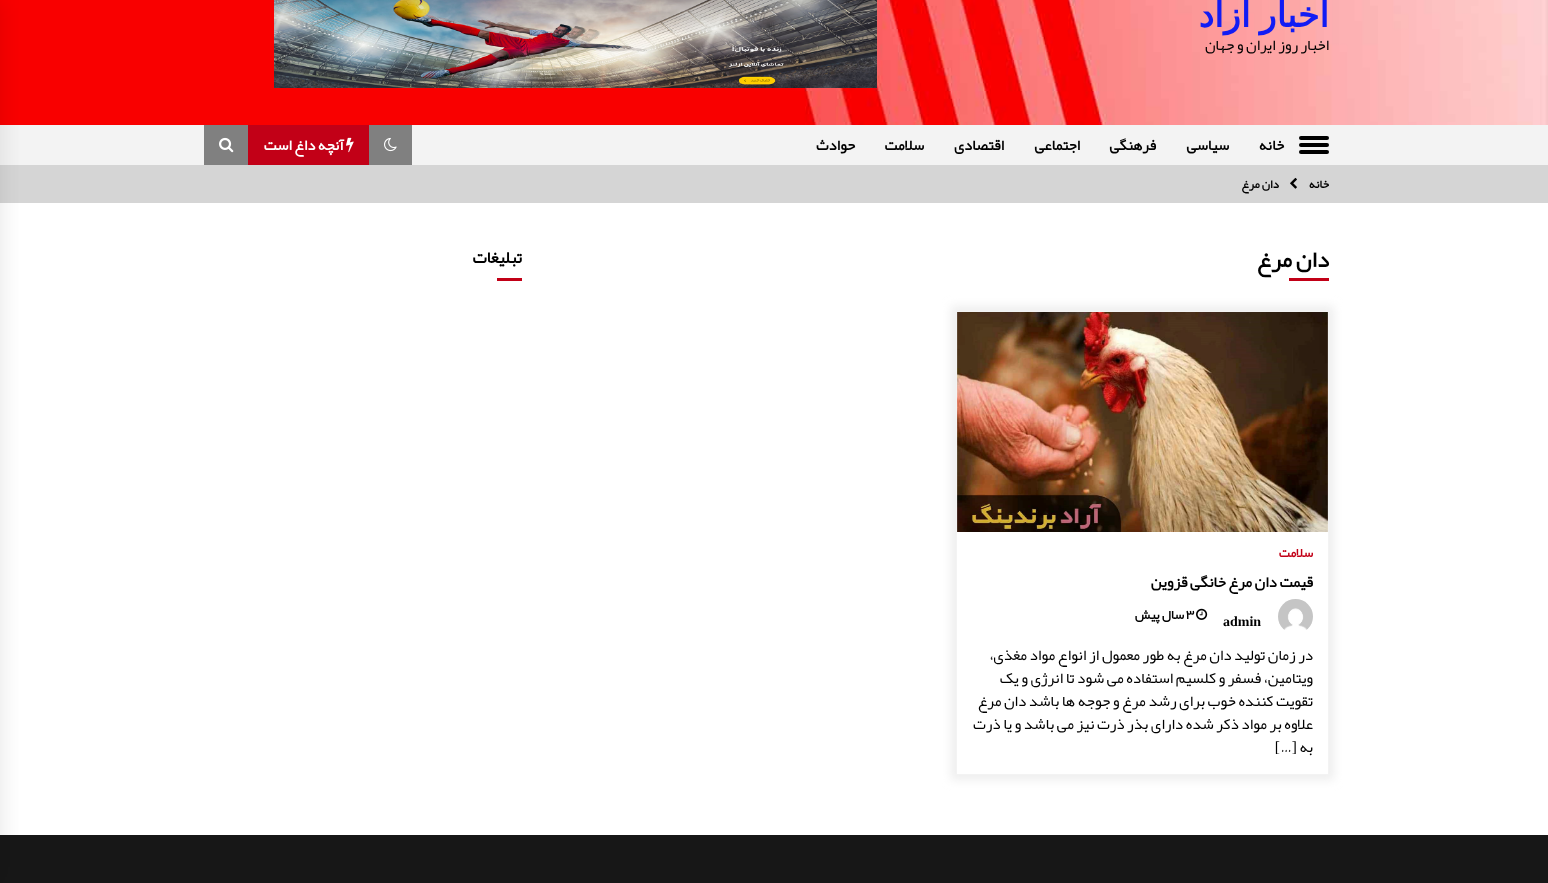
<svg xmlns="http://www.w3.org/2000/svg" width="1548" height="883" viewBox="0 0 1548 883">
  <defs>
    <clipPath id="clip1"><path d="M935 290H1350V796H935ZM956 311H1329V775H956Z" clip-rule="evenodd"/></clipPath>
    <filter id="blur1" x="-50%" y="-200%" width="200%" height="500%"><feGaussianBlur stdDeviation="5"/></filter>
    <filter id="blur2" x="-50%" y="-200%" width="200%" height="500%"><feGaussianBlur stdDeviation="12.5"/></filter>
  </defs>
  <rect width="100%" height="100%" fill="#ffffff"/>
  <image x="0" y="0" width="1548" height="125" href="img1.png"/>
  <text x="1329" y="27" word-spacing="-2" font-family="DejaVu Sans" font-size="35" font-weight="bold" direction="rtl" fill="#111cf4">اخبار آزاد</text>
  <text x="1329" y="50" font-family="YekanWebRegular" font-size="15.4" direction="rtl" fill="#000000">اخبار روز ایران و جهان</text>
  <image x="274" y="0" width="603" height="88" href="img2.png"/>
  <rect x="0" y="125" width="1548" height="40" fill="#f3f3f3"/>
  <rect x="1299" y="136" width="30" height="4" rx="2" fill="#000000"/>
  <rect x="1299" y="150" width="30" height="4" rx="2" fill="#000000"/>
  <rect x="1299" y="143" width="30" height="4" rx="2" fill="#000000"/>
  <text x="1284" y="150" font-family="YekanWebRegular" font-size="15" font-weight="bold" direction="rtl" fill="#000000">خانه</text>
  <text x="1229" y="150" font-family="YekanWebRegular" font-size="15" font-weight="bold" direction="rtl" fill="#000000">سیاسی</text>
  <text x="1156" y="150" font-family="YekanWebRegular" font-size="15" font-weight="bold" direction="rtl" fill="#000000">فرهنگی</text>
  <text x="1080" y="150" font-family="YekanWebRegular" font-size="15" font-weight="bold" direction="rtl" fill="#000000">اجتماعی</text>
  <text x="1004" y="150" font-family="YekanWebRegular" font-size="15" font-weight="bold" direction="rtl" fill="#000000">اقتصادی</text>
  <text x="924" y="150" font-family="YekanWebRegular" font-size="15" font-weight="bold" direction="rtl" fill="#000000">سلامت</text>
  <text x="855" y="150" font-family="YekanWebRegular" font-size="15" font-weight="bold" direction="rtl" fill="#000000">حوادث</text>
  <rect x="369" y="125" width="43" height="40" fill="#808080"/>
  <image x="384" y="137" width="13" height="15" href="img3.png"/>
  <rect x="248" y="125" width="121" height="40" fill="#c20017"/>
  <image x="346" y="137" width="8" height="16" href="img4.png"/>
  <text x="344" y="150" font-family="YekanWebRegular" font-size="15" font-weight="bold" direction="rtl" fill="#ffffff">آنچه داغ است</text>
  <rect x="204" y="125" width="44" height="40" fill="#808080"/>
  <image x="219" y="137" width="15" height="16" href="img5.png"/>
  <rect x="0" y="165" width="1548" height="38" fill="#d5d5d5"/>
  <text x="1329" y="188" font-family="YekanWebRegular" font-size="12" font-weight="bold" direction="rtl" fill="#000000">خانه</text>
  <image x="1290" y="177" width="7" height="12" href="img6.png"/>
  <text x="1279" y="188" font-family="YekanWebRegular" font-size="12" font-weight="bold" direction="rtl" fill="#000000">دان مرغ</text>
  <text x="1329" y="267" font-family="YekanWebRegular" font-size="23" font-weight="bold" direction="rtl" fill="#000000">دان مرغ</text>
  <rect x="1289" y="278" width="40" height="3" fill="#c20017"/>
  <g clip-path="url(#clip1)">
    <rect x="951" y="306" width="383" height="474" fill="#eeeeee" filter="url(#blur1)"/>
  </g>
  <rect x="956.5" y="311.5" width="372" height="463" fill="none" stroke="#f3f3f3"/>
  <image x="957" y="312" width="371" height="220" href="img7.png"/>
  <text x="1313" y="557" font-family="YekanWebRegular" font-size="13" font-weight="bold" direction="rtl" fill="#c20017">سلامت</text>
  <text x="1313" y="587" font-family="YekanWebRegular" font-size="15.4" font-weight="bold" direction="rtl" fill="#000000">قیمت دان مرغ خانگی قزوین</text>
  <image x="1278" y="599" width="35" height="31" href="img8.png"/>
  <text x="1223" y="626" font-family="Liberation Serif" font-size="14" font-weight="bold" fill="#000000">admin</text>
  <image x="1196" y="608" width="12" height="12" href="img9.png"/>
  <text x="1186" y="619" font-family="YekanWebRegular" font-size="13" font-weight="bold" fill="#000000">۳</text>
  <text x="1184" y="619" font-family="YekanWebRegular" font-size="13" font-weight="bold" direction="rtl" fill="#000000">سال پیش</text>
  <text x="1313" y="660" font-family="YekanWebRegular" font-size="15.4" direction="rtl" fill="#000000">در زمان تولید دان مرغ به طور معمول از انواع مواد مغذی،</text>
  <text x="1313" y="683" font-family="YekanWebRegular" font-size="15.4" direction="rtl" fill="#000000">ویتامین، فسفر و کلسیم استفاده می شود تا انرژی و یک</text>
  <text x="1313" y="706" font-family="YekanWebRegular" font-size="15.4" direction="rtl" fill="#000000">تقویت کننده خوب برای رشد مرغ و جوجه ها باشد دان مرغ</text>
  <text x="1313" y="729" font-family="YekanWebRegular" font-size="15.4" direction="rtl" fill="#000000">علاوه بر مواد ذکر شده دارای بذر ذرت نیز می باشد و یا ذرت</text>
  <text x="1313" y="752" font-family="YekanWebRegular" font-size="15.4" direction="rtl" fill="#000000">به</text>
  <text x="1297" y="752" font-family="Liberation Serif" font-size="15.4" direction="rtl" fill="#000000">[</text>
  <text x="1292" y="752" font-family="YekanWebRegular" font-size="15.4" direction="rtl" fill="#000000">…</text>
  <text x="1280" y="752" font-family="Liberation Serif" font-size="15.4" direction="rtl" fill="#000000">]</text>
  <text x="522" y="263" font-family="YekanWebRegular" font-size="17" font-weight="bold" direction="rtl" fill="#000000">تبلیغات</text>
  <rect x="497" y="278" width="25" height="3" fill="#c20017"/>
  <rect x="0" y="835" width="1548" height="48" fill="#171717"/>
  <rect x="-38" y="0" width="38" height="883" fill="#000000" fill-opacity="0.1" filter="url(#blur2)"/>
</svg>
